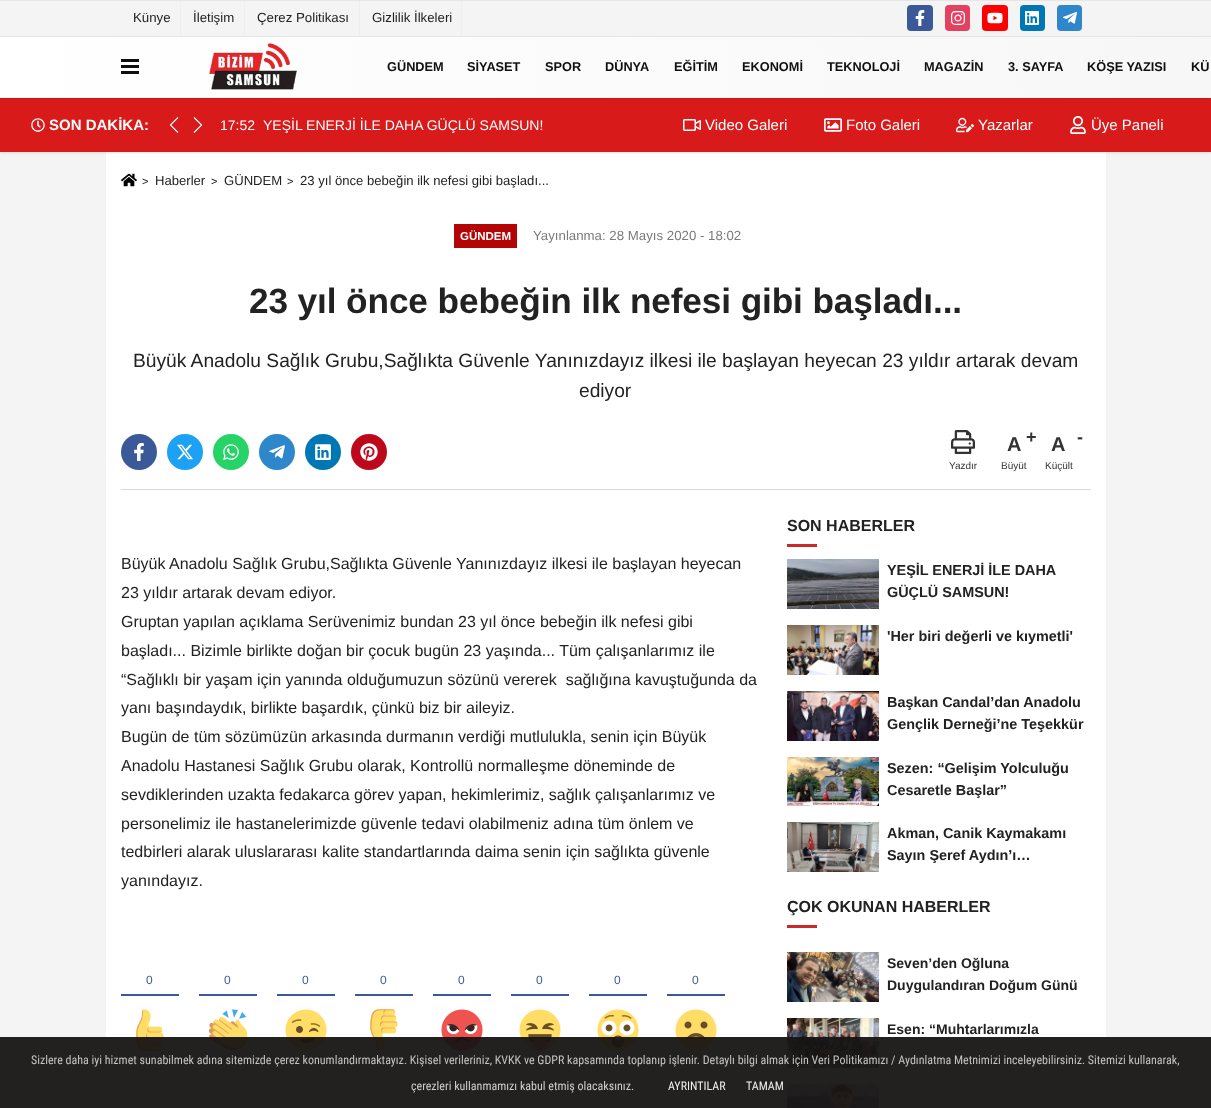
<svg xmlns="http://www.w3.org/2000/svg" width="1211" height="1108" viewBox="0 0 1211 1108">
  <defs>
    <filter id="blur1" x="-50%" y="-200%" width="200%" height="500%"><feGaussianBlur stdDeviation="1"/></filter>
    <radialGradient id="g1" gradientUnits="userSpaceOnUse" cx="1211" cy="37" r="1212"><stop offset="0" stop-color="#f7f7f7"/><stop offset="1" stop-color="#ffffff"/></radialGradient>
  </defs>
  <rect width="100%" height="100%" fill="#f4f4f4"/>
  <rect x="0" y="0" width="1211" height="1" fill="#e6e6e6"/>
  <rect x="180" y="1" width="1" height="35" fill="#eeeeee"/>
  <text x="133" y="22" font-family="Liberation Sans" font-size="13.25" fill="#222222">Künye</text>
  <rect x="244" y="1" width="1" height="35" fill="#eeeeee"/>
  <text x="193" y="22" font-family="Liberation Sans" font-size="13.25" fill="#222222">İletişim</text>
  <rect x="359" y="1" width="1" height="35" fill="#eeeeee"/>
  <text x="257" y="22" font-family="Liberation Sans" font-size="13.25" fill="#222222">Çerez Politikası</text>
  <rect x="461" y="1" width="1" height="35" fill="#eeeeee"/>
  <text x="372" y="22" font-family="Liberation Sans" font-size="13.25" fill="#222222">Gizlilik İlkeleri</text>
  <rect x="907" y="5" width="26" height="26" rx="4" fill="#3b5998"/>
  <image x="915" y="10" width="10" height="16" href="img1.png"/>
  <rect x="945" y="5" width="25" height="26" rx="4" fill="#e4405f"/>
  <image x="951" y="11" width="14" height="14" href="img2.png"/>
  <rect x="982" y="5" width="26" height="26" rx="4" fill="#ff0000"/>
  <image x="987" y="12" width="16" height="12" href="img3.png"/>
  <rect x="1020" y="5" width="25" height="26" rx="4" fill="#0077b5"/>
  <image x="1025" y="11" width="14" height="14" href="img4.png"/>
  <rect x="1057" y="5" width="25" height="26" rx="4" fill="#2e87ca"/>
  <image x="1063" y="12" width="14" height="12" href="img5.png"/>
  <rect x="0" y="36" width="1211" height="1" fill="#e6e6e6"/>
  <rect x="106" y="152" width="1000" height="956" fill="#ffffff"/>
  <rect x="0" y="99" width="1211" height="54" fill="#000000" fill-opacity="0.1" filter="url(#blur1)"/>
  <rect x="0" y="98" width="1211" height="54" fill="#d91a1a"/>
  <rect x="0" y="38" width="1211" height="61" fill="#000000" fill-opacity="0.1" filter="url(#blur1)"/>
  <rect x="0" y="37" width="1211" height="60" fill="url(#g1)"/>
  <rect x="0" y="97" width="1211" height="1" fill="#f5f5f5"/>
  <rect x="121" y="59" width="18" height="3" fill="#0f0f0f"/>
  <rect x="121" y="65" width="18" height="3" fill="#0f0f0f"/>
  <rect x="121" y="71" width="18" height="3" fill="#0f0f0f"/>
  <image x="208" y="43" width="89" height="47" href="img6.png"/>
  <text x="387" y="71" font-family="Liberation Sans" font-size="12.75" font-weight="bold" fill="#0f0f0f">GÜNDEM</text>
  <text x="467" y="71" font-family="Liberation Sans" font-size="12.75" font-weight="bold" fill="#0f0f0f">SİYASET</text>
  <text x="545" y="71" font-family="Liberation Sans" font-size="12.75" font-weight="bold" fill="#0f0f0f">SPOR</text>
  <text x="605" y="71" font-family="Liberation Sans" font-size="12.75" font-weight="bold" fill="#0f0f0f">DÜNYA</text>
  <text x="674" y="71" font-family="Liberation Sans" font-size="12.75" font-weight="bold" fill="#0f0f0f">EĞİTİM</text>
  <text x="742" y="71" font-family="Liberation Sans" font-size="12.75" font-weight="bold" fill="#0f0f0f">EKONOMİ</text>
  <text x="827" y="71" font-family="Liberation Sans" font-size="12.75" font-weight="bold" fill="#0f0f0f">TEKNOLOJİ</text>
  <text x="924" y="71" font-family="Liberation Sans" font-size="12.75" font-weight="bold" fill="#0f0f0f">MAGAZİN</text>
  <text x="1008" y="71" font-family="Liberation Sans" font-size="12.75" font-weight="bold" fill="#0f0f0f">3. SAYFA</text>
  <text x="1087" y="71" font-family="Liberation Sans" font-size="12.75" font-weight="bold" fill="#0f0f0f">KÖŞE YAZISI</text>
  <text x="1191" y="71" font-family="Liberation Sans" font-size="12.75" font-weight="bold" fill="#0f0f0f">KÜ</text>
  <image x="31" y="118" width="14" height="14" href="img7.png"/>
  <text x="49" y="130" font-family="Liberation Sans" font-size="15" font-weight="bold" fill="#ffffff">SON DAKİKA:</text>
  <image x="169" y="117" width="10" height="16" href="img8.png"/>
  <image x="193" y="117" width="10" height="16" href="img9.png"/>
  <text x="220" y="130" font-family="Liberation Sans" font-size="14" fill="#ffffff">17:52</text>
  <text x="263" y="130" font-family="Liberation Sans" font-size="14" fill="#ffffff">YEŞİL ENERJİ İLE DAHA GÜÇLÜ SAMSUN!</text>
  <image x="683" y="119" width="18" height="12" href="img10.png"/>
  <text x="705" y="130" font-family="Liberation Sans" font-size="15" fill="#ffffff">Video Galeri</text>
  <image x="824" y="118" width="18" height="14" href="img11.png"/>
  <text x="846" y="130" font-family="Liberation Sans" font-size="15" fill="#ffffff">Foto Galeri</text>
  <image x="956" y="117" width="18" height="16" href="img12.png"/>
  <text x="978" y="130" font-family="Liberation Sans" font-size="15" fill="#ffffff">Yazarlar</text>
  <image x="1070" y="116" width="16" height="18" href="img13.png"/>
  <text x="1091" y="130" font-family="Liberation Sans" font-size="15" fill="#ffffff">Üye Paneli</text>
  <image x="121" y="173" width="16" height="14" href="img14.png"/>
  <text x="142" y="185" font-family="Liberation Sans" font-size="11" fill="#222222">&gt;</text>
  <text x="155" y="185" font-family="Liberation Sans" font-size="13.1" fill="#222222">Haberler</text>
  <text x="211" y="185" font-family="Liberation Sans" font-size="11" fill="#222222">&gt;</text>
  <text x="224" y="185" font-family="Liberation Sans" font-size="13.1" fill="#222222">GÜNDEM</text>
  <text x="287" y="185" font-family="Liberation Sans" font-size="11" fill="#222222">&gt;</text>
  <text x="300" y="185" font-family="Liberation Sans" font-size="13.1" fill="#222222">23 yıl önce bebeğin ilk nefesi gibi başladı...</text>
  <rect x="454" y="224" width="63" height="24" fill="#b30505"/>
  <text x="460" y="240" font-family="Liberation Sans" font-size="11.5" font-weight="bold" fill="#ffffff">GÜNDEM</text>
  <text x="533" y="240" font-family="Liberation Sans" font-size="13.25" fill="#7a7a7a">Yayınlanma: 28 Mayıs 2020 - 18:02</text>
  <text x="249" y="313" font-family="Liberation Sans" font-size="35.2" font-weight="bold" letter-spacing="-0.1" fill="#222222">23 yıl önce bebeğin ilk nefesi gibi başladı...</text>
  <text x="133" y="367" font-family="Liberation Sans" font-size="19.2" fill="#222222">Büyük Anadolu Sağlık Grubu,Sağlıkta Güvenle Yanınızdayız ilkesi ile başlayan heyecan 23 yıldır artarak devam</text>
  <text x="579" y="397" font-family="Liberation Sans" font-size="19.2" fill="#222222">ediyor</text>
  <circle cx="139" cy="452" r="18" fill="#3b5998"/>
  <image x="134" y="443" width="10" height="18" href="img15.png"/>
  <circle cx="185" cy="452" r="18" fill="#1da1f2"/>
  <image x="177" y="444" width="16" height="16" href="img16.png"/>
  <circle cx="231" cy="452" r="18" fill="#25d366"/>
  <image x="223" y="444" width="16" height="16" href="img17.png"/>
  <circle cx="277" cy="452" r="18" fill="#2e87ca"/>
  <image x="269" y="445" width="16" height="14" href="img18.png"/>
  <circle cx="323" cy="452" r="18" fill="#0077b5"/>
  <image x="315" y="444" width="16" height="16" href="img19.png"/>
  <circle cx="369" cy="452" r="18" fill="#bd081c"/>
  <image x="360" y="443" width="18" height="18" href="img20.png"/>
  <image x="951" y="430" width="24" height="24" href="img21.png"/>
  <text x="949" y="469" font-family="Liberation Sans" font-size="10" fill="#333333">Yazdır</text>
  <text x="1007" y="451" font-family="Liberation Sans" font-size="20" font-weight="bold" fill="#333333">A</text>
  <text x="1026" y="443" font-family="Liberation Sans" font-size="18" font-weight="bold" fill="#333333">+</text>
  <text x="1001" y="469" font-family="Liberation Sans" font-size="10" fill="#333333">Büyüt</text>
  <text x="1051" y="451" font-family="Liberation Sans" font-size="20" font-weight="bold" fill="#333333">A</text>
  <text x="1077" y="443" font-family="Liberation Sans" font-size="18" font-weight="bold" fill="#333333">-</text>
  <text x="1045" y="469" font-family="Liberation Sans" font-size="10" fill="#333333">Küçült</text>
  <rect x="121" y="489" width="970" height="1" fill="#d9d9d9"/>
  <text x="121" y="569" font-family="Liberation Sans" font-size="16" fill="#222222">Büyük Anadolu Sağlık Grubu,Sağlıkta Güvenle Yanınızdayız ilkesi ile başlayan heyecan</text>
  <text x="121" y="598" font-family="Liberation Sans" font-size="16" fill="#222222">23 yıldır artarak devam ediyor.</text>
  <text x="121" y="627" font-family="Liberation Sans" font-size="16" fill="#222222">Gruptan yapılan açıklama Serüvenimiz bundan 23 yıl önce bebeğin ilk nefesi gibi</text>
  <text x="121" y="656" font-family="Liberation Sans" font-size="16" fill="#222222">başladı... Bizimle birlikte doğan bir çocuk bugün 23 yaşında... Tüm çalışanlarımız ile</text>
  <text x="121" y="685" font-family="Liberation Sans" font-size="16" fill="#222222" xml:space="preserve">“Sağlıklı bir yaşam için yanında olduğumuzun sözünü vererek  sağlığına kavuştuğunda da</text>
  <text x="121" y="713" font-family="Liberation Sans" font-size="16" fill="#222222">yanı başındaydık, birlikte başardık, çünkü biz bir aileyiz.</text>
  <text x="121" y="742" font-family="Liberation Sans" font-size="16" fill="#222222">Bugün de tüm sözümüzün arkasında durmanın verdiği mutlulukla, senin için Büyük</text>
  <text x="121" y="771" font-family="Liberation Sans" font-size="16" fill="#222222">Anadolu Hastanesi Sağlık Grubu olarak, Kontrollü normalleşme döneminde de</text>
  <text x="121" y="800" font-family="Liberation Sans" font-size="16" fill="#222222">sevdiklerinden uzakta fedakarca görev yapan, hekimlerimiz, sağlık çalışanlarımız ve</text>
  <text x="121" y="829" font-family="Liberation Sans" font-size="16" fill="#222222">personelimiz ile hastanelerimizde güvenle tedavi olabilmeniz adına tüm önlem ve</text>
  <text x="121" y="857" font-family="Liberation Sans" font-size="16" fill="#222222">tedbirleri alarak uluslararası kalite standartlarında daima senin için sağlıkta güvenle</text>
  <text x="121" y="886" font-family="Liberation Sans" font-size="16" fill="#222222">yanındayız.</text>
  <rect x="121" y="994" width="58" height="2" fill="#3b5998"/>
  <text x="146" y="984" font-family="Liberation Sans" font-size="12" fill="#3b5998">0</text>
  <image x="136" y="1009" width="28" height="42" href="img22.png"/>
  <rect x="199" y="994" width="58" height="2" fill="#3b5998"/>
  <text x="224" y="984" font-family="Liberation Sans" font-size="12" fill="#3b5998">0</text>
  <image x="208" y="1009" width="40" height="42" href="img23.png"/>
  <rect x="277" y="994" width="58" height="2" fill="#3b5998"/>
  <text x="302" y="984" font-family="Liberation Sans" font-size="12" fill="#3b5998">0</text>
  <image x="285" y="1009" width="42" height="42" href="img24.png"/>
  <rect x="355" y="994" width="58" height="2" fill="#3b5998"/>
  <text x="380" y="984" font-family="Liberation Sans" font-size="12" fill="#3b5998">0</text>
  <image x="370" y="1009" width="28" height="42" href="img25.png"/>
  <rect x="433" y="994" width="58" height="2" fill="#3b5998"/>
  <text x="458" y="984" font-family="Liberation Sans" font-size="12" fill="#3b5998">0</text>
  <image x="441" y="1009" width="42" height="42" href="img26.png"/>
  <rect x="511" y="994" width="58" height="2" fill="#3b5998"/>
  <text x="536" y="984" font-family="Liberation Sans" font-size="12" fill="#3b5998">0</text>
  <image x="519" y="1009" width="42" height="42" href="img27.png"/>
  <rect x="589" y="994" width="58" height="2" fill="#3b5998"/>
  <text x="614" y="984" font-family="Liberation Sans" font-size="12" fill="#3b5998">0</text>
  <image x="597" y="1009" width="42" height="42" href="img28.png"/>
  <rect x="667" y="994" width="58" height="2" fill="#3b5998"/>
  <text x="692" y="984" font-family="Liberation Sans" font-size="12" fill="#3b5998">0</text>
  <image x="675" y="1009" width="42" height="42" href="img29.png"/>
  <text x="787" y="531" font-family="Liberation Sans" font-size="16" font-weight="bold" fill="#222222">SON HABERLER</text>
  <rect x="787" y="544" width="30" height="3" fill="#cc292b"/>
  <image x="787" y="559" width="92" height="50" href="img30.png"/>
  <text x="887" y="575" font-family="Liberation Sans" font-size="14.4" font-weight="bold" fill="#222222">YEŞİL ENERJİ İLE DAHA</text>
  <text x="887" y="597" font-family="Liberation Sans" font-size="14.4" font-weight="bold" fill="#222222">GÜÇLÜ SAMSUN!</text>
  <image x="787" y="625" width="92" height="50" href="img31.png"/>
  <text x="887" y="641" font-family="Liberation Sans" font-size="14.4" font-weight="bold" fill="#222222">'Her biri değerli ve kıymetli'</text>
  <image x="787" y="691" width="92" height="50" href="img32.png"/>
  <text x="887" y="707" font-family="Liberation Sans" font-size="14.4" font-weight="bold" fill="#222222">Başkan Candal’dan Anadolu</text>
  <text x="887" y="729" font-family="Liberation Sans" font-size="14.4" font-weight="bold" fill="#222222">Gençlik Derneği’ne Teşekkür</text>
  <image x="787" y="757" width="92" height="49" href="img33.png"/>
  <text x="887" y="773" font-family="Liberation Sans" font-size="14.4" font-weight="bold" fill="#222222">Sezen: “Gelişim Yolculuğu</text>
  <text x="887" y="795" font-family="Liberation Sans" font-size="14.4" font-weight="bold" fill="#222222">Cesaretle Başlar”</text>
  <image x="787" y="822" width="92" height="50" href="img34.png"/>
  <text x="887" y="838" font-family="Liberation Sans" font-size="14.4" font-weight="bold" fill="#222222">Akman, Canik Kaymakamı</text>
  <text x="887" y="860" font-family="Liberation Sans" font-size="14.4" font-weight="bold" fill="#222222">Sayın Şeref Aydın’ı…</text>
  <text x="787" y="912" font-family="Liberation Sans" font-size="16" font-weight="bold" fill="#222222">ÇOK OKUNAN HABERLER</text>
  <rect x="787" y="925" width="30" height="3" fill="#cc292b"/>
  <image x="787" y="952" width="92" height="50" href="img35.png"/>
  <text x="887" y="968" font-family="Liberation Sans" font-size="14" font-weight="bold" fill="#222222">Seven’den Oğluna</text>
  <text x="887" y="990" font-family="Liberation Sans" font-size="14" font-weight="bold" fill="#222222">Duygulandıran Doğum Günü</text>
  <image x="787" y="1018" width="92" height="50" href="img36.png"/>
  <text x="887" y="1034" font-family="Liberation Sans" font-size="14" font-weight="bold" fill="#222222">Esen: “Muhtarlarımızla</text>
  <image x="787" y="1084" width="92" height="24" href="img37.png"/>
  <rect x="0" y="1037" width="1211" height="71" fill="#171414" fill-opacity="0.95"/>
  <text x="31" y="1064" font-family="Roboto Condensed" font-size="12" fill="#c3c3c3">Sizlere daha iyi hizmet sunabilmek adına sitemizde çerez konumlandırmaktayız. Kişisel verileriniz, KVKK ve GDPR kapsamında toplanıp işlenir. Detaylı bilgi almak için Veri Politikamızı / Aydınlatma Metnimizi inceleyebilirsiniz. Sitemizi kullanarak,</text>
  <text x="411" y="1090" font-family="Roboto Condensed" font-size="12" fill="#cfcfcf">çerezleri kullanmamızı kabul etmiş olacaksınız.</text>
  <text x="668" y="1090" font-family="Roboto Condensed" font-size="12" fill="#efefef">AYRINTILAR</text>
  <text x="746" y="1090" font-family="Roboto Condensed" font-size="12" fill="#efefef">TAMAM</text>
</svg>
